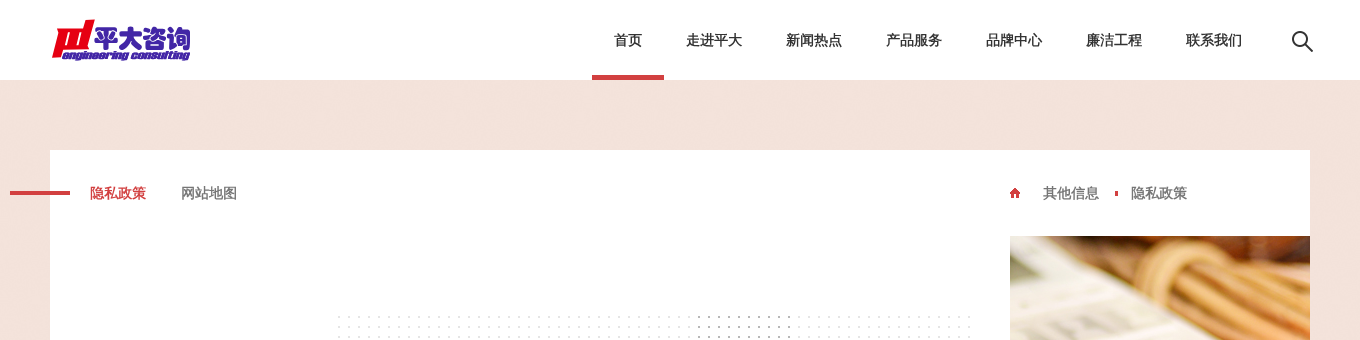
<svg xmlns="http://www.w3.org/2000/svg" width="1360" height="340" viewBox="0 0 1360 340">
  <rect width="100%" height="100%" fill="#ffffff"/>
  <image x="0" y="80" width="1360" height="260" href="img1.png"/>
  <image x="52" y="19" width="138" height="42" href="img2.png"/>
  <text x="614" y="45" font-family="WenQuanYi Zen Hei" font-size="14" font-weight="bold" fill="#333333">首页</text>
  <text x="686" y="45" font-family="WenQuanYi Zen Hei" font-size="14" font-weight="bold" fill="#333333">走进平大</text>
  <text x="786" y="45" font-family="WenQuanYi Zen Hei" font-size="14" font-weight="bold" fill="#333333">新闻热点</text>
  <text x="886" y="45" font-family="WenQuanYi Zen Hei" font-size="14" font-weight="bold" fill="#333333">产品服务</text>
  <text x="986" y="45" font-family="WenQuanYi Zen Hei" font-size="14" font-weight="bold" fill="#333333">品牌中心</text>
  <text x="1086" y="45" font-family="WenQuanYi Zen Hei" font-size="14" font-weight="bold" fill="#333333">廉洁工程</text>
  <text x="1186" y="45" font-family="WenQuanYi Zen Hei" font-size="14" font-weight="bold" fill="#333333">联系我们</text>
  <rect x="592" y="75" width="72" height="5" fill="#d24040"/>
  <image x="1292" y="31" width="21" height="21" href="img3.png"/>
  <rect x="50" y="150" width="1260" height="190" fill="#ffffff"/>
  <rect x="10" y="191" width="60" height="4" fill="#d24040"/>
  <text x="90" y="198" font-family="WenQuanYi Zen Hei" font-size="14" font-weight="bold" fill="#d24040">隐私政策</text>
  <text x="181" y="198" font-family="WenQuanYi Zen Hei" font-size="14" font-weight="bold" fill="#767676">网站地图</text>
  <image x="1010" y="188" width="10" height="10" href="img4.png"/>
  <text x="1043" y="198" font-family="WenQuanYi Zen Hei" font-size="14" font-weight="bold" fill="#767676">其他信息</text>
  <rect x="1115" y="191" width="3" height="5" fill="#d24040"/>
  <text x="1131" y="198" font-family="WenQuanYi Zen Hei" font-size="14" font-weight="bold" fill="#767676">隐私政策</text>
  <image x="338" y="316" width="632" height="22" href="img5.png"/>
  <image x="1010" y="236" width="300" height="104" href="img6.png"/>
</svg>
